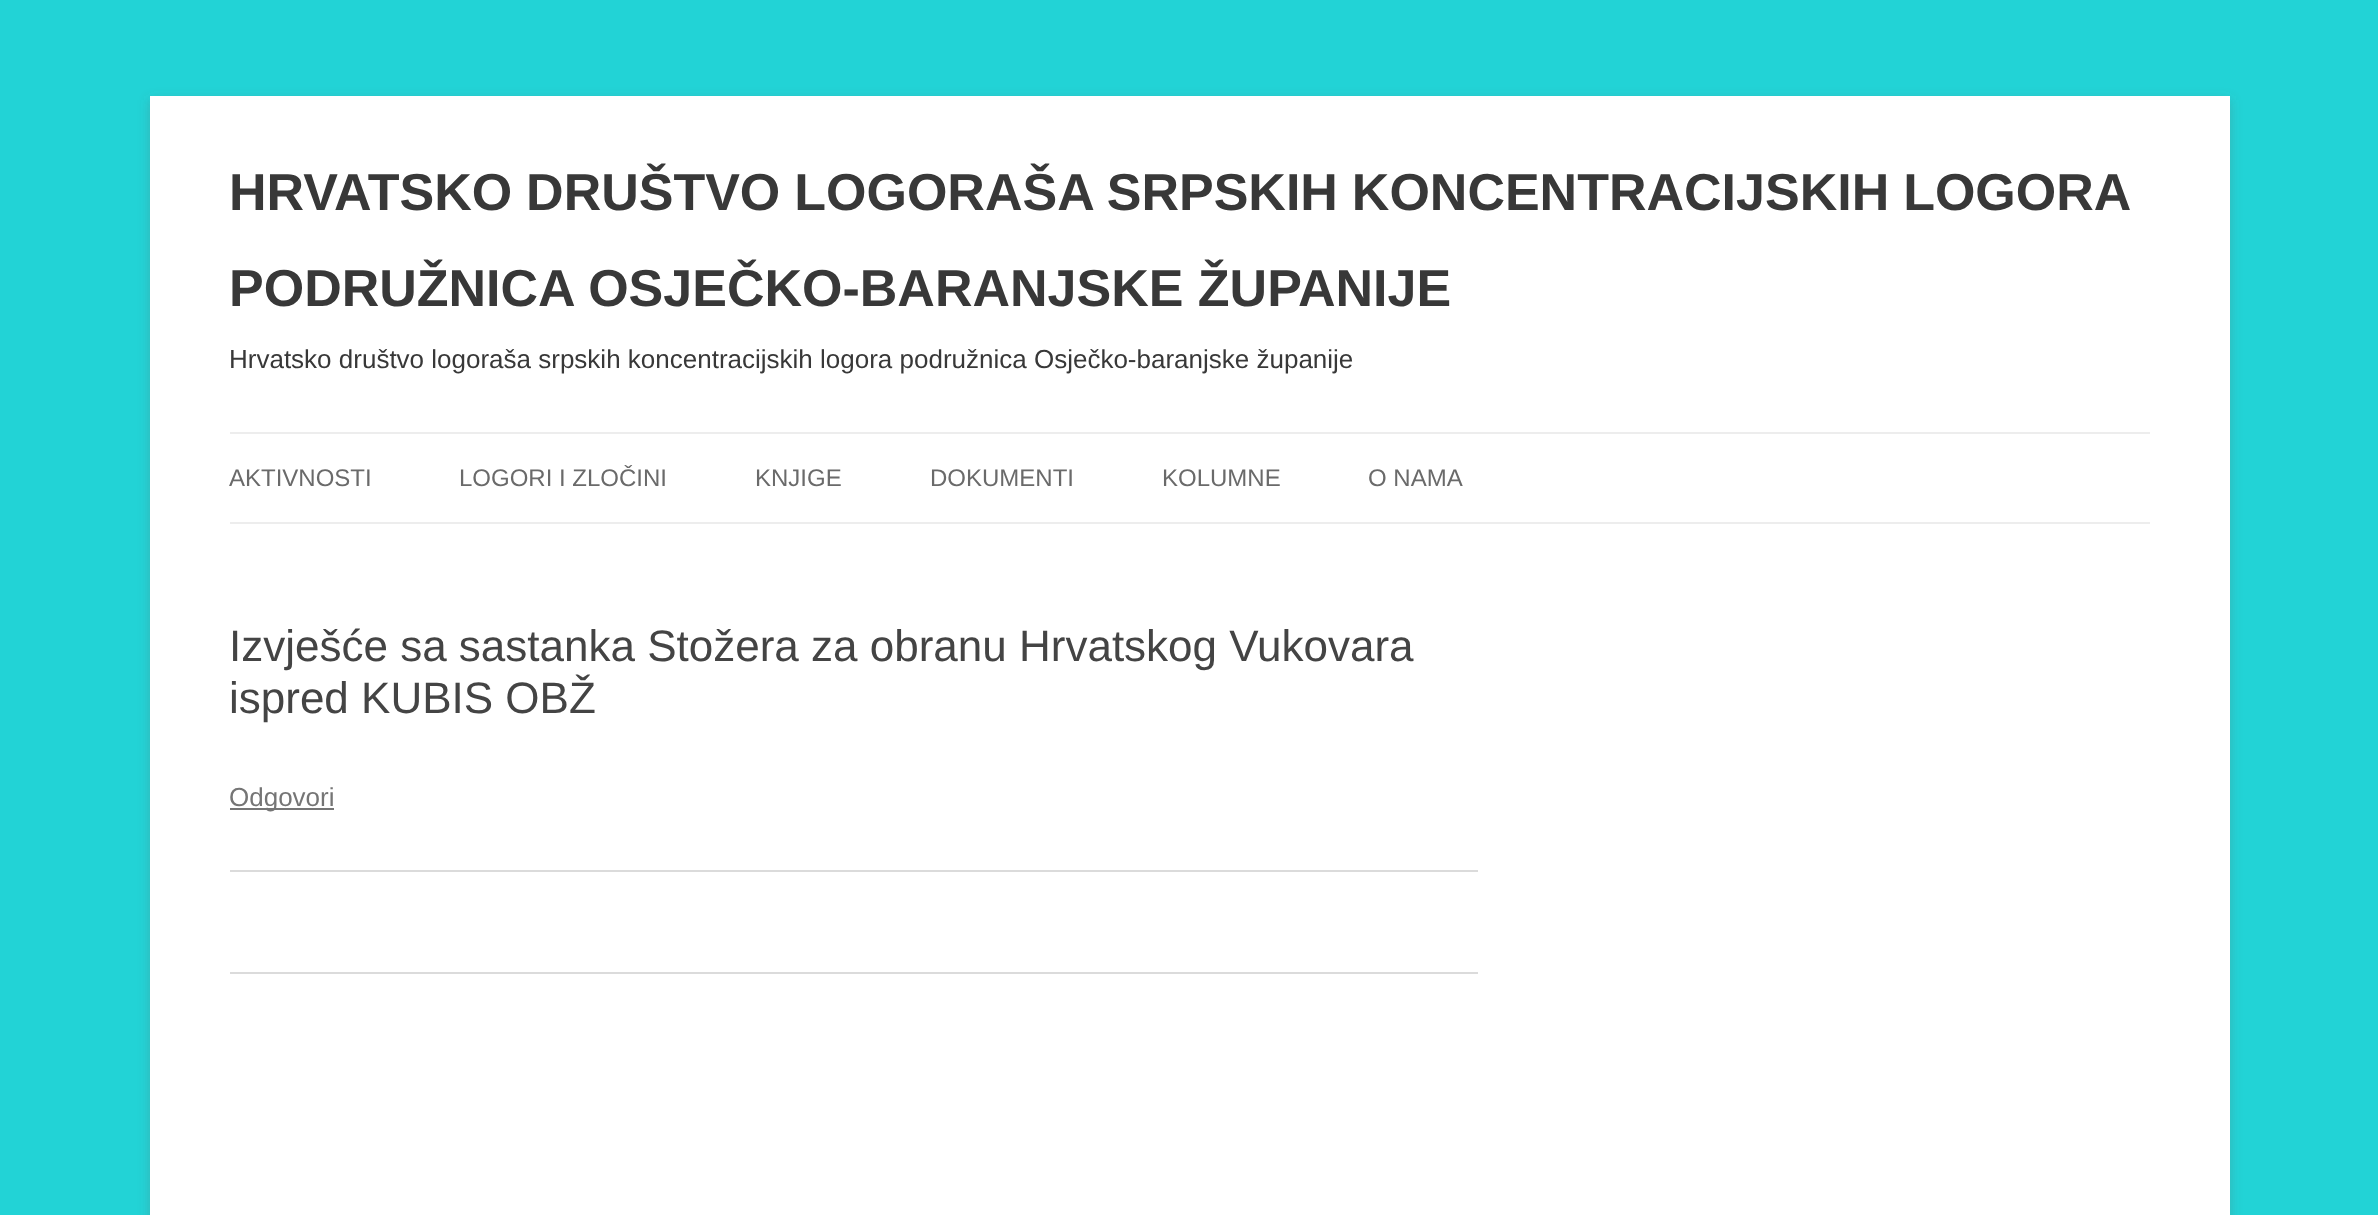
<svg xmlns="http://www.w3.org/2000/svg" width="2378" height="1215" viewBox="0 0 2378 1215">
  <defs>
    <filter id="blur1" x="-50%" y="-200%" width="200%" height="500%"><feGaussianBlur stdDeviation="6"/></filter>
  </defs>
  <rect width="100%" height="100%" fill="#22d3d6"/>
  <rect x="150" y="100" width="2080" height="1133" fill="#646464" fill-opacity="0.3" filter="url(#blur1)"/>
  <rect x="150" y="96" width="2080" height="1119" fill="#ffffff"/>
  <text x="229" y="210" word-spacing="-0.5" font-family="Liberation Sans" font-size="52" font-weight="bold" fill="#383838">HRVATSKO DRUŠTVO LOGORAŠA SRPSKIH KONCENTRACIJSKIH LOGORA</text>
  <text x="229" y="306" font-family="Liberation Sans" font-size="52" font-weight="bold" fill="#383838">PODRUŽNICA OSJEČKO-BARANJSKE ŽUPANIJE</text>
  <text x="229" y="368" font-family="Liberation Sans" font-size="26" fill="#383838">Hrvatsko društvo logoraša srpskih koncentracijskih logora podružnica Osječko-baranjske županije</text>
  <rect x="230" y="432" width="1920" height="2" fill="#ededed"/>
  <rect x="230" y="522" width="1920" height="2" fill="#ededed"/>
  <text x="229" y="486" font-family="Liberation Sans" font-size="24" fill="#6a6a6a">AKTIVNOSTI</text>
  <text x="459" y="486" font-family="Liberation Sans" font-size="24" fill="#6a6a6a">LOGORI I ZLOČINI</text>
  <text x="755" y="486" font-family="Liberation Sans" font-size="24" fill="#6a6a6a">KNJIGE</text>
  <text x="930" y="486" font-family="Liberation Sans" font-size="24" fill="#6a6a6a">DOKUMENTI</text>
  <text x="1162" y="486" font-family="Liberation Sans" font-size="24" fill="#6a6a6a">KOLUMNE</text>
  <text x="1368" y="486" font-family="Liberation Sans" font-size="24" fill="#6a6a6a">O NAMA</text>
  <text x="229" y="661" font-family="Liberation Sans" font-size="44" fill="#444444">Izvješće sa sastanka Stožera za obranu Hrvatskog Vukovara</text>
  <text x="229" y="713" font-family="Liberation Sans" font-size="44" fill="#444444">ispred KUBIS OBŽ</text>
  <rect x="230" y="808" width="104" height="2" fill="#757575"/>
  <text x="229" y="806" font-family="Liberation Sans" font-size="26" fill="#757575">Odgovori</text>
  <rect x="230" y="870" width="1248" height="2" fill="#dbdbdb"/>
  <rect x="230" y="972" width="1248" height="2" fill="#dbdbdb"/>
</svg>
